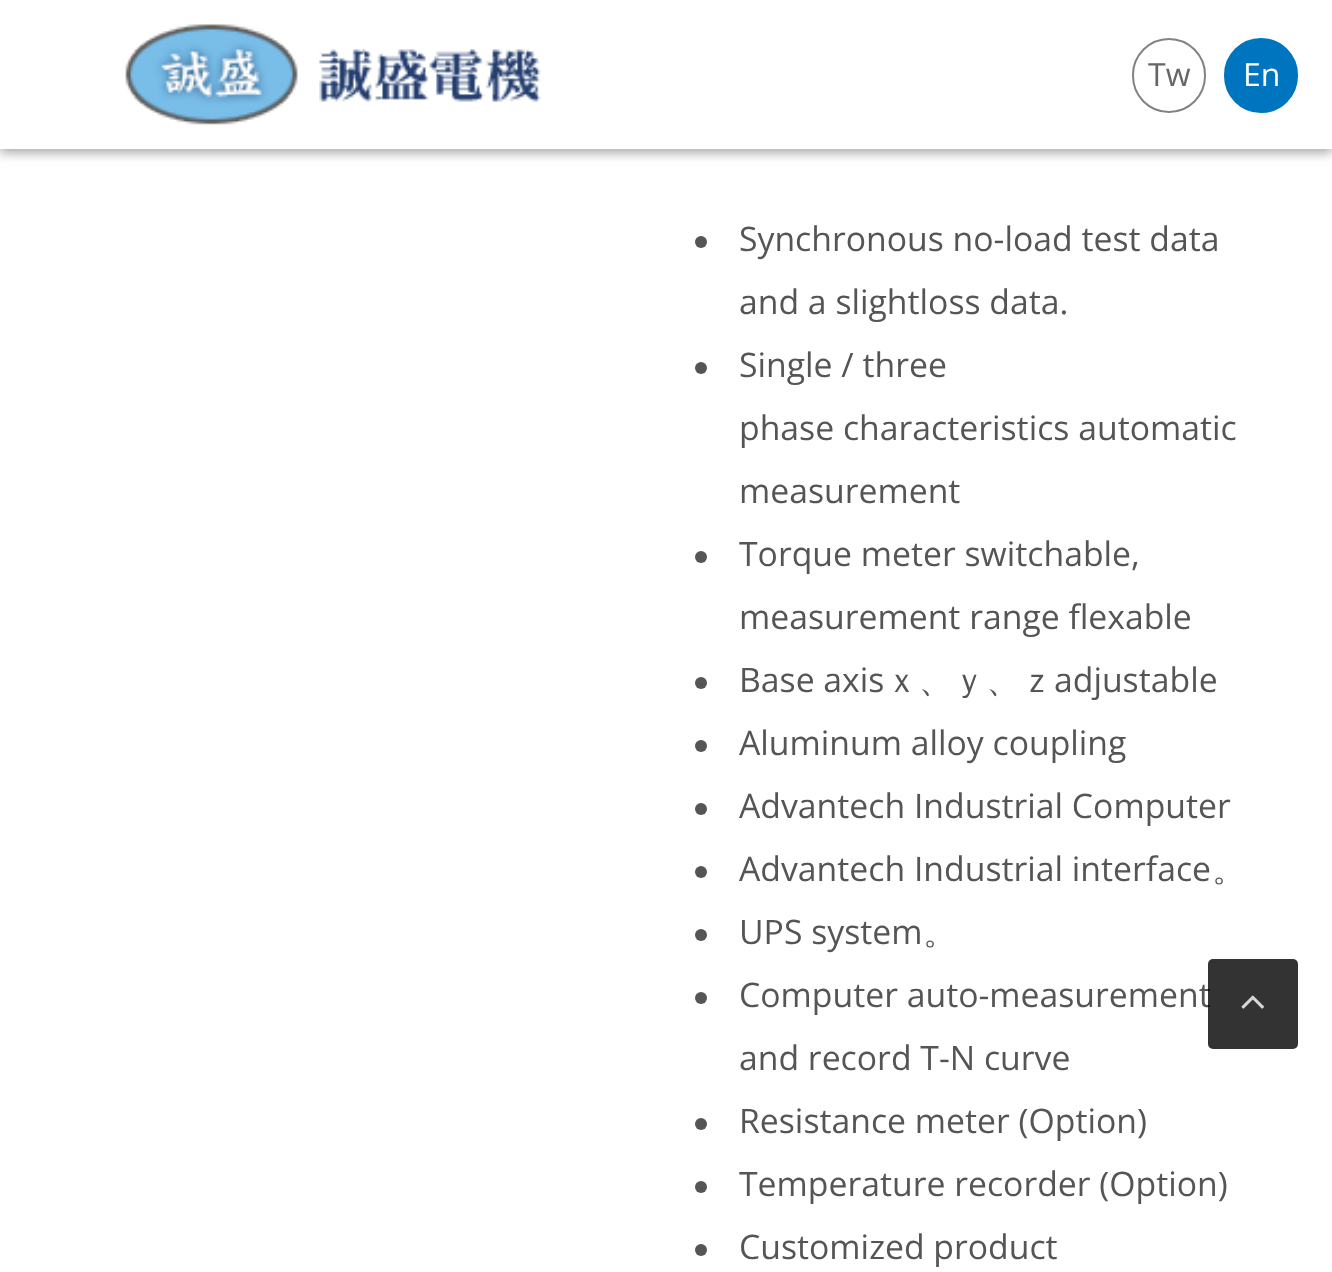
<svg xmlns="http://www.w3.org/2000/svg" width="1332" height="1272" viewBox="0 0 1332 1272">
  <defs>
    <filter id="blur1" x="-50%" y="-200%" width="200%" height="500%"><feGaussianBlur stdDeviation="5.5"/></filter>
  </defs>
  <rect width="100%" height="100%" fill="#ffffff"/>
  <rect x="0" y="5" width="1332" height="148" fill="#7e7e7e" fill-opacity="0.68" filter="url(#blur1)"/>
  <rect x="0" y="0" width="1332" height="149" fill="#ffffff"/>
  <image x="125" y="24" width="416" height="101" href="img1.png"/>
  <rect x="1133" y="39" width="72" height="73" rx="36" fill="none" stroke="#828282" stroke-width="2"/>
  <text x="1148" y="86" font-family="Open Sans" font-size="32" fill="#666666">Tw</text>
  <rect x="1225" y="39" width="72" height="73" rx="36" fill="#0075bf" stroke="#0075bf" stroke-width="2"/>
  <text x="1243" y="86" font-family="Open Sans" font-size="32" fill="#ffffff">En</text>
  <circle cx="701" cy="242" r="6" fill="#555555"/>
  <text x="739" y="251" font-family="Open Sans" font-size="33.75" fill="#555555">Synchronous no-load test data</text>
  <text x="739" y="314" font-family="Open Sans" font-size="33.75" fill="#555555">and a slightloss data.</text>
  <circle cx="701" cy="368" r="6" fill="#555555"/>
  <text x="739" y="377" font-family="Open Sans" font-size="33.75" fill="#555555">Single / three</text>
  <text x="739" y="440" font-family="Open Sans" font-size="33.75" fill="#555555">phase characteristics automatic</text>
  <text x="739" y="503" font-family="Open Sans" font-size="33.75" fill="#555555">measurement</text>
  <circle cx="701" cy="557" r="6" fill="#555555"/>
  <text x="739" y="566" font-family="Open Sans" font-size="33.75" fill="#555555">Torque meter switchable,</text>
  <text x="739" y="629" font-family="Open Sans" font-size="33.75" fill="#555555">measurement range flexable</text>
  <circle cx="701" cy="683" r="6" fill="#555555"/>
  <text x="739" y="692" font-family="Open Sans" font-size="33.75" fill="#555555">Base axis</text>
  <text x="885" y="692" font-family="WenQuanYi Zen Hei" font-size="33.75" font-weight="500" fill="#555555">ｘ、ｙ、ｚ</text>
  <text x="1054" y="692" font-family="Open Sans" font-size="33.75" fill="#555555">adjustable</text>
  <circle cx="701" cy="746" r="6" fill="#555555"/>
  <text x="739" y="755" font-family="Open Sans" font-size="33.75" fill="#555555">Aluminum alloy coupling</text>
  <circle cx="701" cy="809" r="6" fill="#555555"/>
  <text x="739" y="818" font-family="Open Sans" font-size="33.75" fill="#555555">Advantech Industrial Computer</text>
  <circle cx="701" cy="872" r="6" fill="#555555"/>
  <text x="739" y="881" font-family="Open Sans" font-size="33.75" fill="#555555">Advantech Industrial interface</text>
  <text x="1212" y="881" font-family="WenQuanYi Zen Hei" font-size="33.75" font-weight="500" fill="#555555">。</text>
  <circle cx="701" cy="935" r="6" fill="#555555"/>
  <text x="739" y="944" font-family="Open Sans" font-size="33.75" fill="#555555">UPS system</text>
  <text x="923" y="944" font-family="WenQuanYi Zen Hei" font-size="33.75" font-weight="500" fill="#555555">。</text>
  <circle cx="701" cy="998" r="6" fill="#555555"/>
  <text x="739" y="1007" font-family="Open Sans" font-size="33.75" fill="#555555">Computer auto-measurement</text>
  <text x="739" y="1070" font-family="Open Sans" font-size="33.75" fill="#555555">and record T-N curve</text>
  <circle cx="701" cy="1124" r="6" fill="#555555"/>
  <text x="739" y="1133" font-family="Open Sans" font-size="33.75" fill="#555555">Resistance meter (Option)</text>
  <circle cx="701" cy="1187" r="6" fill="#555555"/>
  <text x="739" y="1196" font-family="Open Sans" font-size="33.75" fill="#555555">Temperature recorder (Option)</text>
  <circle cx="701" cy="1250" r="6" fill="#555555"/>
  <text x="739" y="1259" font-family="Open Sans" font-size="33.75" fill="#555555">Customized product</text>
  <rect x="1208" y="959" width="90" height="90" rx="5" fill="#000000" fill-opacity="0.8"/>
  <image x="1241" y="995" width="23" height="14" href="img2.png"/>
</svg>
